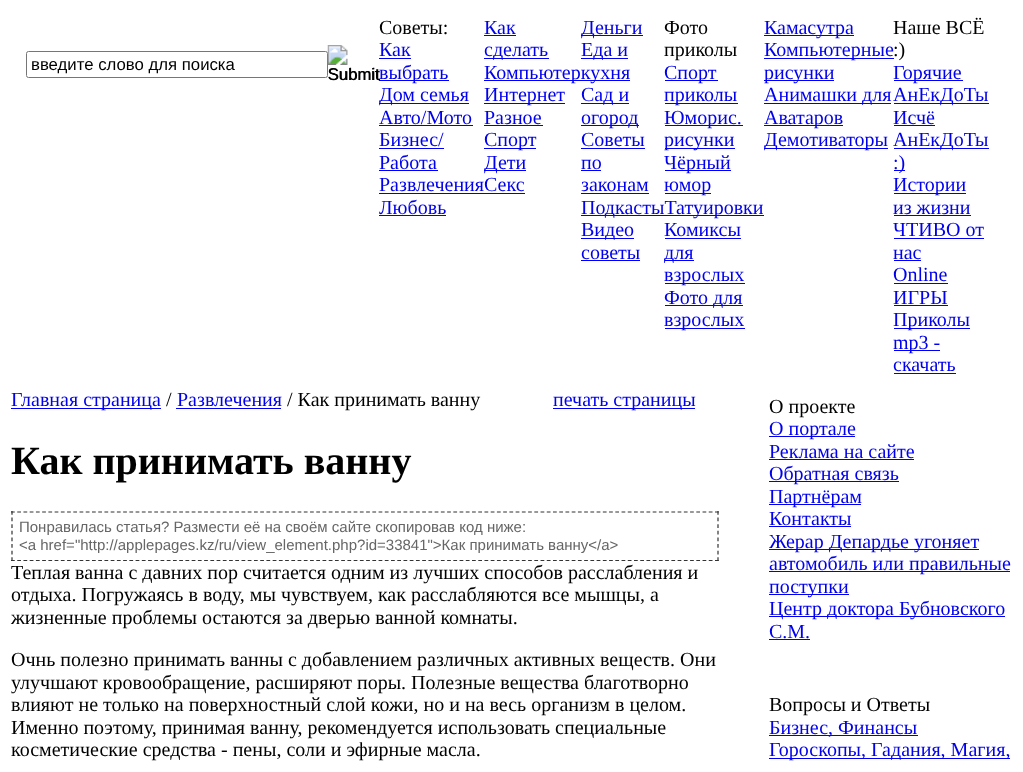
<svg xmlns="http://www.w3.org/2000/svg" width="1023" height="772" viewBox="0 0 1023 772">
  <rect width="100%" height="100%" fill="#ffffff"/>
  <rect x="26.5" y="51.5" width="301" height="26" rx="2" fill="none" stroke="#767676"/>
  <text x="31" y="70" font-family="Liberation Sans" font-size="16.75" fill="#000000">введите слово для поиска</text>
  <image x="327" y="45" width="52" height="35" href="img1.png"/>
  <text x="328" y="80" font-family="Liberation Sans" font-size="16.75" fill="#000000">Submit</text>
  <text x="379" y="34" font-family="Liberation Serif" font-size="20" fill="#000000">Советы:</text>
  <text x="379" y="56" font-family="Liberation Serif" font-size="20" fill="#0000ee">Как</text>
  <rect x="379" y="58" width="32" height="1" fill="#0000ee"/>
  <rect x="379" y="80" width="70" height="1" fill="#0000ee"/>
  <text x="379" y="79" font-family="Liberation Serif" font-size="20" fill="#0000ee">выбрать</text>
  <rect x="379" y="103" width="90" height="1" fill="#0000ee"/>
  <text x="379" y="101" font-family="Liberation Serif" font-size="20" fill="#0000ee">Дом семья</text>
  <text x="379" y="124" font-family="Liberation Serif" font-size="20" fill="#0000ee">Авто/Мото</text>
  <rect x="379" y="125" width="94" height="1" fill="#0000ee"/>
  <text x="379" y="146" font-family="Liberation Serif" font-size="20" fill="#0000ee">Бизнес/</text>
  <rect x="379" y="148" width="65" height="1" fill="#0000ee"/>
  <text x="379" y="169" font-family="Liberation Serif" font-size="20" fill="#0000ee">Работа</text>
  <rect x="379" y="170" width="59" height="1" fill="#0000ee"/>
  <text x="379" y="191" font-family="Liberation Serif" font-size="20" fill="#0000ee">РазвлеченияСекс</text>
  <rect x="379" y="193" width="146" height="1" fill="#0000ee"/>
  <text x="379" y="214" font-family="Liberation Serif" font-size="20" fill="#0000ee">Любовь</text>
  <rect x="379" y="215" width="67" height="1" fill="#0000ee"/>
  <text x="484" y="34" font-family="Liberation Serif" font-size="20" fill="#0000ee">Как</text>
  <rect x="484" y="35" width="32" height="1" fill="#0000ee"/>
  <rect x="484" y="58" width="65" height="1" fill="#0000ee"/>
  <text x="484" y="56" font-family="Liberation Serif" font-size="20" fill="#0000ee">сделать</text>
  <rect x="484" y="80" width="146" height="1" fill="#0000ee"/>
  <text x="484" y="79" font-family="Liberation Serif" font-size="20" fill="#0000ee">Компьютеркухня</text>
  <rect x="484" y="103" width="81" height="1" fill="#0000ee"/>
  <text x="484" y="101" font-family="Liberation Serif" font-size="20" fill="#0000ee">Интернет</text>
  <text x="484" y="124" font-family="Liberation Serif" font-size="20" fill="#0000ee">Разное</text>
  <rect x="484" y="125" width="59" height="1" fill="#0000ee"/>
  <rect x="484" y="148" width="52" height="1" fill="#0000ee"/>
  <text x="484" y="146" font-family="Liberation Serif" font-size="20" fill="#0000ee">Спорт</text>
  <rect x="484" y="170" width="42" height="1" fill="#0000ee"/>
  <text x="484" y="169" font-family="Liberation Serif" font-size="20" fill="#0000ee">Дети</text>
  <rect x="581" y="35" width="62" height="1" fill="#0000ee"/>
  <text x="581" y="34" font-family="Liberation Serif" font-size="20" fill="#0000ee">Деньги</text>
  <rect x="581" y="58" width="47" height="1" fill="#0000ee"/>
  <text x="581" y="56" font-family="Liberation Serif" font-size="20" fill="#0000ee">Еда и</text>
  <rect x="581" y="103" width="48" height="1" fill="#0000ee"/>
  <text x="581" y="101" font-family="Liberation Serif" font-size="20" fill="#0000ee">Сад и</text>
  <rect x="581" y="125" width="58" height="1" fill="#0000ee"/>
  <text x="581" y="124" font-family="Liberation Serif" font-size="20" fill="#0000ee">огород</text>
  <text x="581" y="146" font-family="Liberation Serif" font-size="20" fill="#0000ee">Советы</text>
  <rect x="581" y="148" width="64" height="1" fill="#0000ee"/>
  <text x="581" y="169" font-family="Liberation Serif" font-size="20" fill="#0000ee">по</text>
  <rect x="581" y="170" width="20" height="1" fill="#0000ee"/>
  <text x="581" y="191" font-family="Liberation Serif" font-size="20" fill="#0000ee">законам</text>
  <rect x="581" y="193" width="68" height="1" fill="#0000ee"/>
  <rect x="581" y="215" width="183" height="1" fill="#0000ee"/>
  <text x="581" y="214" font-family="Liberation Serif" font-size="20" fill="#0000ee">ПодкастыТатуировки</text>
  <rect x="581" y="238" width="53" height="1" fill="#0000ee"/>
  <text x="581" y="236" font-family="Liberation Serif" font-size="20" fill="#0000ee">Видео</text>
  <text x="581" y="259" font-family="Liberation Serif" font-size="20" fill="#0000ee">советы</text>
  <rect x="581" y="260" width="59" height="1" fill="#0000ee"/>
  <text x="893" y="34" font-family="Liberation Serif" font-size="20" fill="#000000">Наше ВСЁ</text>
  <text x="893" y="56" font-family="Liberation Serif" font-size="20" fill="#000000">:)</text>
  <rect x="894" y="80" width="69" height="1" fill="#0000ee"/>
  <text x="893" y="79" font-family="Liberation Serif" font-size="20" fill="#0000ee">Горячие</text>
  <rect x="894" y="103" width="95" height="1" fill="#0000ee"/>
  <text x="893" y="101" font-family="Liberation Serif" font-size="20" fill="#0000ee">АнЕкДоТы</text>
  <text x="893" y="124" font-family="Liberation Serif" font-size="20" fill="#0000ee">Исчё</text>
  <rect x="894" y="125" width="41" height="1" fill="#0000ee"/>
  <rect x="894" y="148" width="95" height="1" fill="#0000ee"/>
  <text x="893" y="146" font-family="Liberation Serif" font-size="20" fill="#0000ee">АнЕкДоТы</text>
  <rect x="894" y="170" width="11" height="1" fill="#0000ee"/>
  <text x="893" y="169" font-family="Liberation Serif" font-size="20" fill="#0000ee">:)</text>
  <rect x="894" y="193" width="72" height="1" fill="#0000ee"/>
  <text x="893" y="191" font-family="Liberation Serif" font-size="20" fill="#0000ee">Истории</text>
  <text x="893" y="214" font-family="Liberation Serif" font-size="20" fill="#0000ee">из жизни</text>
  <rect x="894" y="215" width="77" height="1" fill="#0000ee"/>
  <text x="893" y="236" font-family="Liberation Serif" font-size="20" fill="#0000ee">ЧТИВО от</text>
  <rect x="894" y="238" width="90" height="1" fill="#0000ee"/>
  <text x="893" y="259" font-family="Liberation Serif" font-size="20" fill="#0000ee">нас</text>
  <rect x="894" y="260" width="27" height="1" fill="#0000ee"/>
  <text x="893" y="281" font-family="Liberation Serif" font-size="20" fill="#0000ee">Online</text>
  <rect x="894" y="283" width="54" height="1" fill="#0000ee"/>
  <text x="893" y="304" font-family="Liberation Serif" font-size="20" fill="#0000ee">ИГРЫ</text>
  <rect x="894" y="305" width="54" height="1" fill="#0000ee"/>
  <rect x="894" y="328" width="76" height="1" fill="#0000ee"/>
  <text x="893" y="326" font-family="Liberation Serif" font-size="20" fill="#0000ee">Приколы</text>
  <rect x="894" y="350" width="46" height="1" fill="#0000ee"/>
  <text x="893" y="349" font-family="Liberation Serif" font-size="20" fill="#0000ee">mp3 -</text>
  <text x="893" y="371" font-family="Liberation Serif" font-size="20" fill="#0000ee">скачать</text>
  <rect x="894" y="373" width="62" height="1" fill="#0000ee"/>
  <text x="664" y="34" font-family="Liberation Serif" font-size="20" fill="#000000">Фото</text>
  <text x="664" y="56" font-family="Liberation Serif" font-size="20" fill="#000000">приколы</text>
  <rect x="665" y="80" width="53" height="1" fill="#0000ee"/>
  <text x="664" y="79" font-family="Liberation Serif" font-size="20" fill="#0000ee">Спорт</text>
  <rect x="665" y="103" width="73" height="1" fill="#0000ee"/>
  <text x="664" y="101" font-family="Liberation Serif" font-size="20" fill="#0000ee">приколы</text>
  <rect x="665" y="125" width="78" height="1" fill="#0000ee"/>
  <text x="664" y="124" font-family="Liberation Serif" font-size="20" fill="#0000ee">Юморис.</text>
  <rect x="665" y="148" width="70" height="1" fill="#0000ee"/>
  <text x="664" y="146" font-family="Liberation Serif" font-size="20" fill="#0000ee">рисунки</text>
  <rect x="665" y="170" width="66" height="1" fill="#0000ee"/>
  <text x="664" y="169" font-family="Liberation Serif" font-size="20" fill="#0000ee">Чёрный</text>
  <rect x="665" y="193" width="46" height="1" fill="#0000ee"/>
  <text x="664" y="191" font-family="Liberation Serif" font-size="20" fill="#0000ee">юмор</text>
  <text x="664" y="236" font-family="Liberation Serif" font-size="20" fill="#0000ee">Комиксы</text>
  <rect x="665" y="238" width="76" height="1" fill="#0000ee"/>
  <rect x="665" y="260" width="29" height="1" fill="#0000ee"/>
  <text x="664" y="259" font-family="Liberation Serif" font-size="20" fill="#0000ee">для</text>
  <rect x="665" y="283" width="80" height="1" fill="#0000ee"/>
  <text x="664" y="281" font-family="Liberation Serif" font-size="20" fill="#0000ee">взрослых</text>
  <rect x="665" y="305" width="78" height="1" fill="#0000ee"/>
  <text x="664" y="304" font-family="Liberation Serif" font-size="20" fill="#0000ee">Фото для</text>
  <rect x="665" y="328" width="80" height="1" fill="#0000ee"/>
  <text x="664" y="326" font-family="Liberation Serif" font-size="20" fill="#0000ee">взрослых</text>
  <rect x="764" y="35" width="90" height="1" fill="#0000ee"/>
  <text x="764" y="34" font-family="Liberation Serif" font-size="20" fill="#0000ee">Камасутра</text>
  <rect x="764" y="58" width="130" height="1" fill="#0000ee"/>
  <text x="764" y="56" font-family="Liberation Serif" font-size="20" fill="#0000ee">Компьютерные</text>
  <rect x="764" y="80" width="70" height="1" fill="#0000ee"/>
  <text x="764" y="79" font-family="Liberation Serif" font-size="20" fill="#0000ee">рисунки</text>
  <rect x="764" y="103" width="127" height="1" fill="#0000ee"/>
  <text x="764" y="101" font-family="Liberation Serif" font-size="20" fill="#0000ee">Анимашки для</text>
  <rect x="764" y="125" width="79" height="1" fill="#0000ee"/>
  <text x="764" y="124" font-family="Liberation Serif" font-size="20" fill="#0000ee">Аватаров</text>
  <rect x="764" y="148" width="124" height="1" fill="#0000ee"/>
  <text x="764" y="146" font-family="Liberation Serif" font-size="20" fill="#0000ee">Демотиваторы</text>
  <rect x="11" y="408" width="150" height="1" fill="#0000ee"/>
  <text x="11" y="406" font-family="Liberation Serif" font-size="20" fill="#0000ee">Главная страница</text>
  <text x="166" y="406" font-family="Liberation Serif" font-size="20" fill="#000000">/</text>
  <text x="177" y="406" font-family="Liberation Serif" font-size="20" fill="#0000ee">Развлечения</text>
  <rect x="176" y="408" width="105" height="1" fill="#0000ee"/>
  <text x="287" y="406" font-family="Liberation Serif" font-size="20" fill="#000000">/ Как принимать ванну</text>
  <rect x="553" y="408" width="142" height="1" fill="#0000ee"/>
  <text x="553" y="406" font-family="Liberation Serif" font-size="20" fill="#0000ee">печать страницы</text>
  <text x="11" y="474" font-family="Liberation Serif" font-size="40" font-weight="bold" fill="#000000">Как принимать ванну</text>
  <path d="M11 512H719" fill="none" stroke="#333333" stroke-width="1.2" stroke-dasharray="3.75 2.48"/>
  <path d="M718 511V561" fill="none" stroke="#333333" stroke-width="1.2" stroke-dasharray="3.75 2.86"/>
  <path d="M11 560.5H719" fill="none" stroke="#333333" stroke-width="1.2" stroke-dasharray="3.75 2.48"/>
  <path d="M12 511V561" fill="none" stroke="#333333" stroke-width="1.2" stroke-dasharray="3.75 2.86"/>
  <text x="19" y="532" font-family="Liberation Sans" font-size="15" fill="#666666">Понравилась статья? Размести её на своём сайте скопировав код ниже:</text>
  <text x="19" y="550" font-family="Liberation Sans" font-size="15" fill="#666666">&lt;a href="http://applepages.kz/ru/view_element.php?id=33841"&gt;Как принимать ванну&lt;/a&gt;</text>
  <text x="11" y="579" font-family="Liberation Serif" font-size="20" fill="#000000">Теплая ванна с давних пор считается одним из лучших способов расслабления и</text>
  <text x="11" y="601" font-family="Liberation Serif" font-size="20" fill="#000000">отдыха. Погружаясь в воду, мы чувствуем, как расслабляются все мышцы, а</text>
  <text x="11" y="624" font-family="Liberation Serif" font-size="20" fill="#000000">жизненные проблемы остаются за дверью ванной комнаты.</text>
  <text x="11" y="666" font-family="Liberation Serif" font-size="20" fill="#000000">Очнь полезно принимать ванны с добавлением различных активных веществ. Они</text>
  <text x="11" y="689" font-family="Liberation Serif" font-size="20" fill="#000000">улучшают кровообращение, расширяют поры. Полезные вещества благотворно</text>
  <text x="11" y="711" font-family="Liberation Serif" font-size="20" fill="#000000">влияют не только на поверхностный слой кожи, но и на весь организм в целом.</text>
  <text x="11" y="734" font-family="Liberation Serif" font-size="20" fill="#000000">Именно поэтому, принимая ванну, рекомендуется использовать специальные</text>
  <text x="11" y="756" font-family="Liberation Serif" font-size="20" fill="#000000">косметические средства - пены, соли и эфирные масла.</text>
  <text x="769" y="413" font-family="Liberation Serif" font-size="20" fill="#000000">О проекте</text>
  <rect x="769" y="436" width="86" height="1" fill="#0000ee"/>
  <text x="769" y="435" font-family="Liberation Serif" font-size="20" fill="#0000ee">О портале</text>
  <text x="769" y="458" font-family="Liberation Serif" font-size="20" fill="#0000ee">Реклама на сайте</text>
  <rect x="769" y="459" width="145" height="1" fill="#0000ee"/>
  <rect x="769" y="481" width="130" height="1" fill="#0000ee"/>
  <text x="769" y="480" font-family="Liberation Serif" font-size="20" fill="#0000ee">Обратная связь</text>
  <rect x="769" y="504" width="92" height="1" fill="#0000ee"/>
  <text x="769" y="503" font-family="Liberation Serif" font-size="20" fill="#0000ee">Партнёрам</text>
  <text x="769" y="525" font-family="Liberation Serif" font-size="20" fill="#0000ee">Контакты</text>
  <rect x="769" y="526" width="82" height="1" fill="#0000ee"/>
  <rect x="769" y="549" width="210" height="1" fill="#0000ee"/>
  <text x="769" y="548" font-family="Liberation Serif" font-size="20" fill="#0000ee">Жерар Депардье угоняет</text>
  <rect x="769" y="571" width="241" height="1" fill="#0000ee"/>
  <text x="769" y="570" font-family="Liberation Serif" font-size="20" fill="#0000ee">автомобиль или правильные</text>
  <rect x="769" y="594" width="80" height="1" fill="#0000ee"/>
  <text x="769" y="593" font-family="Liberation Serif" font-size="20" fill="#0000ee">поступки</text>
  <rect x="769" y="616" width="236" height="1" fill="#0000ee"/>
  <text x="769" y="615" font-family="Liberation Serif" font-size="20" fill="#0000ee">Центр доктора Бубновского</text>
  <text x="769" y="638" font-family="Liberation Serif" font-size="20" fill="#0000ee">С.М.</text>
  <rect x="769" y="639" width="41" height="1" fill="#0000ee"/>
  <text x="769" y="711" font-family="Liberation Serif" font-size="20" fill="#000000">Вопросы и Ответы</text>
  <rect x="769" y="735" width="149" height="1" fill="#0000ee"/>
  <text x="769" y="734" font-family="Liberation Serif" font-size="20" fill="#0000ee">Бизнес, Финансы</text>
  <rect x="769" y="758" width="241" height="1" fill="#0000ee"/>
  <text x="769" y="756" font-family="Liberation Serif" font-size="20" fill="#0000ee">Гороскопы, Гадания, Магия,</text>
</svg>
